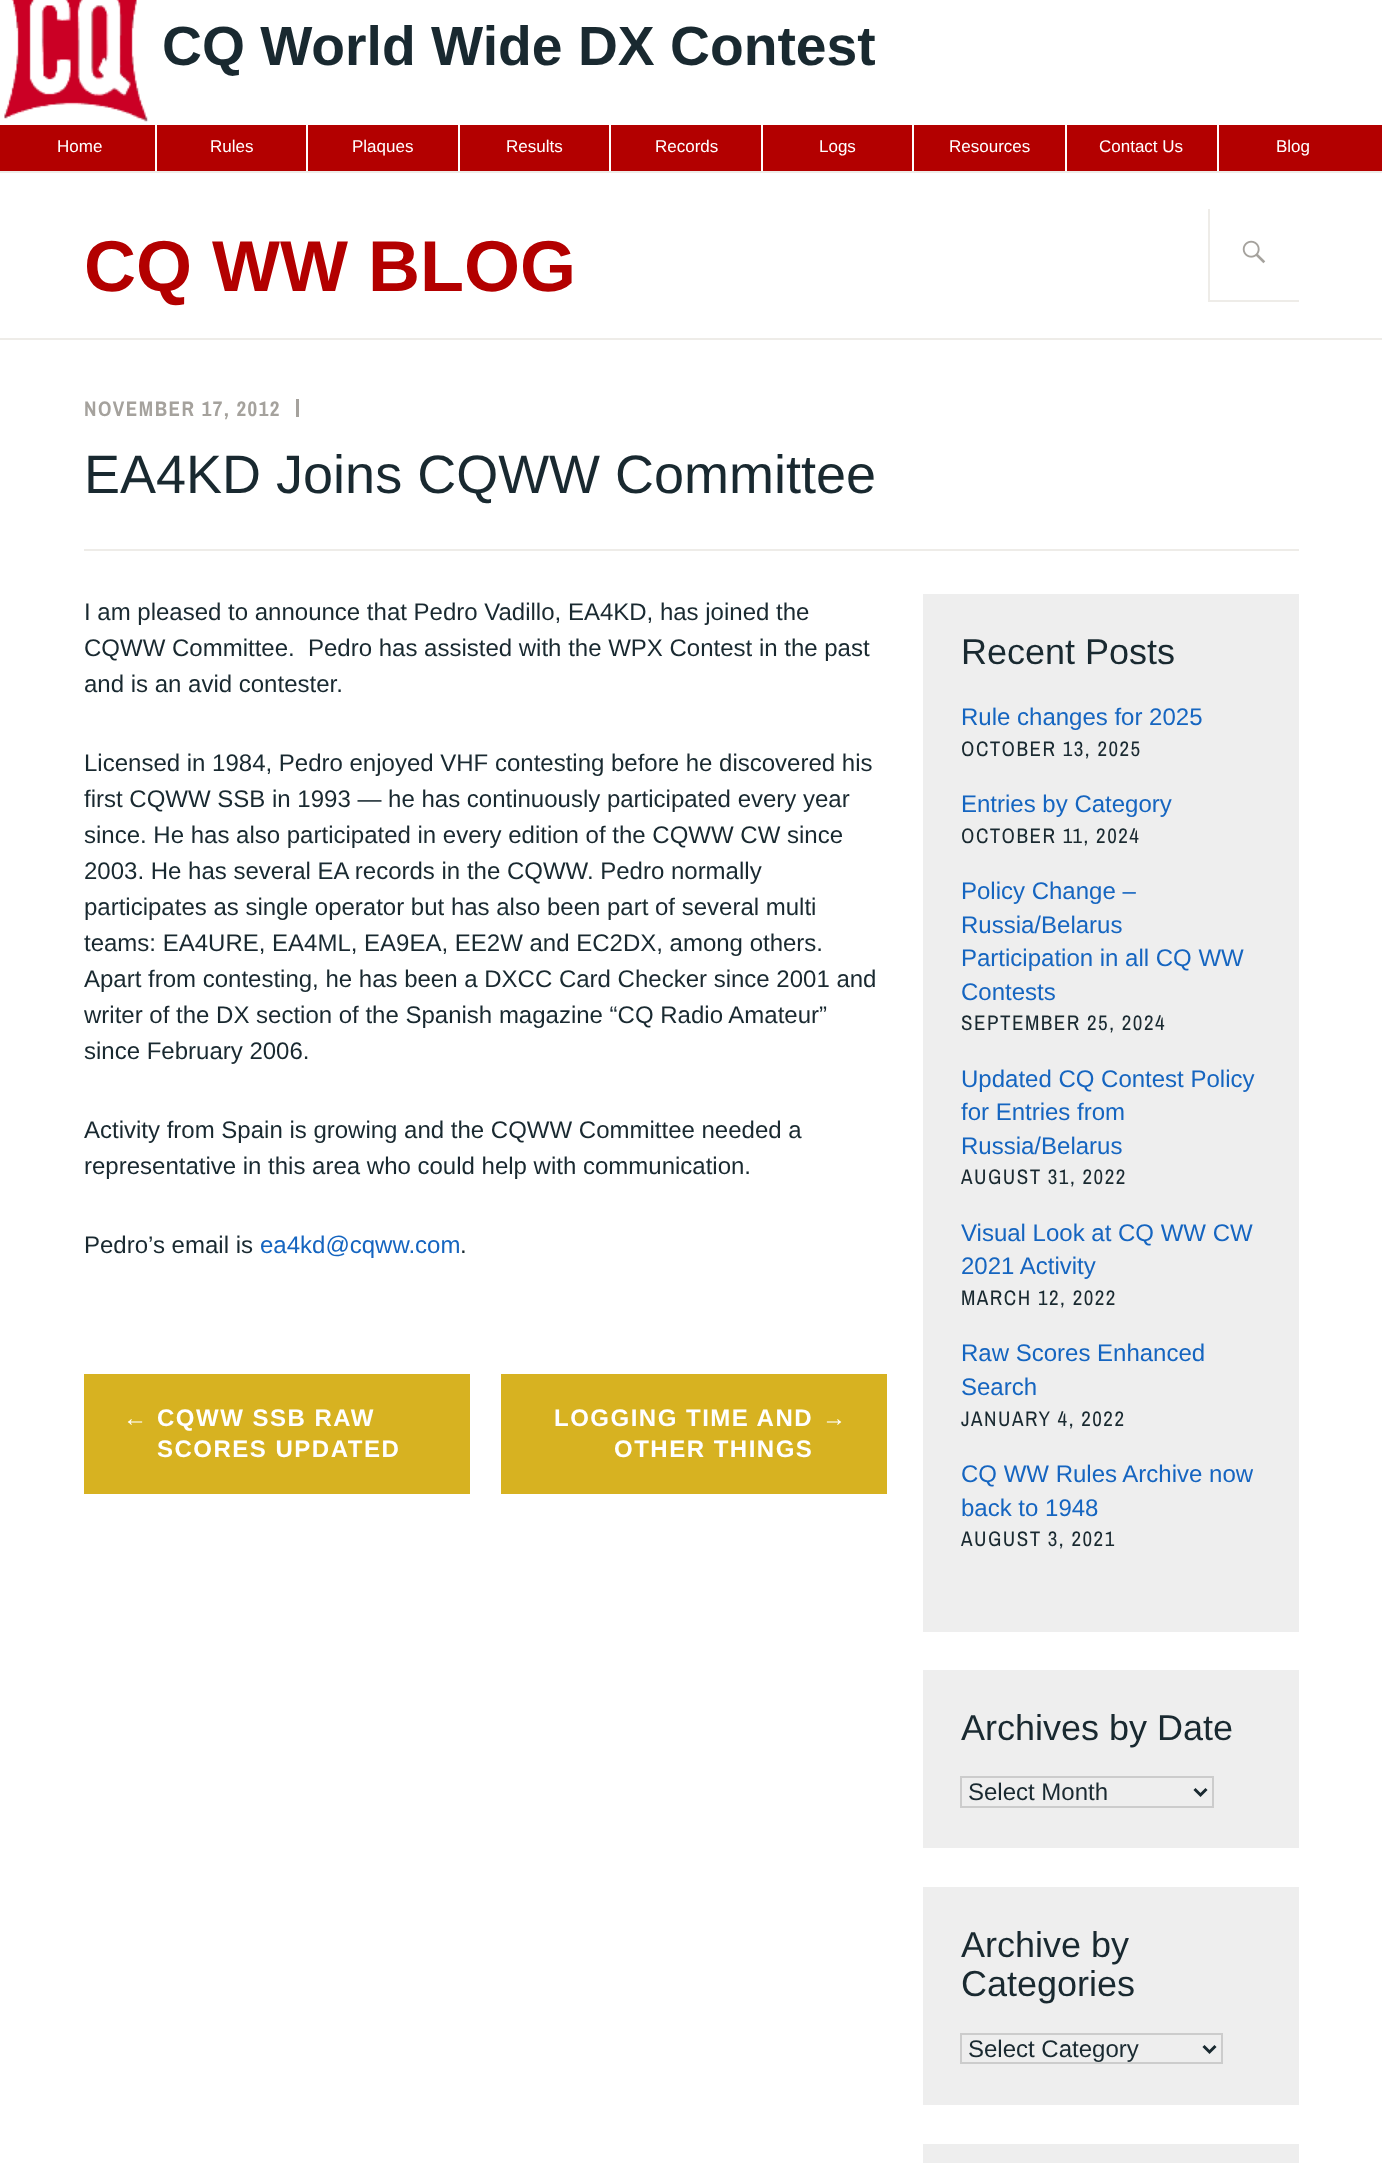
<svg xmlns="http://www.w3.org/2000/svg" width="1382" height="2163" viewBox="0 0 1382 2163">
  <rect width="100%" height="100%" fill="#ffffff"/>
  <image x="4" y="0" width="145" height="122" href="img1.png"/>
  <text x="162" y="65" font-family="Liberation Sans" font-size="55.25" font-weight="bold" fill="#192930">CQ World Wide DX Contest</text>
  <rect x="0" y="125" width="1382" height="46" fill="#b30000"/>
  <rect x="155" y="125" width="2" height="46" fill="#ffffff"/>
  <text x="57" y="152" font-family="Liberation Sans" font-size="17" fill="#ffffff">Home</text>
  <rect x="306" y="125" width="2" height="46" fill="#ffffff"/>
  <text x="210" y="152" font-family="Liberation Sans" font-size="17" fill="#ffffff">Rules</text>
  <rect x="458" y="125" width="2" height="46" fill="#ffffff"/>
  <text x="352" y="152" font-family="Liberation Sans" font-size="17" fill="#ffffff">Plaques</text>
  <rect x="609" y="125" width="2" height="46" fill="#ffffff"/>
  <text x="506" y="152" font-family="Liberation Sans" font-size="17" fill="#ffffff">Results</text>
  <rect x="761" y="125" width="2" height="46" fill="#ffffff"/>
  <text x="655" y="152" font-family="Liberation Sans" font-size="17" fill="#ffffff">Records</text>
  <rect x="912" y="125" width="2" height="46" fill="#ffffff"/>
  <text x="819" y="152" font-family="Liberation Sans" font-size="17" fill="#ffffff">Logs</text>
  <rect x="1065" y="125" width="2" height="46" fill="#ffffff"/>
  <text x="949" y="152" font-family="Liberation Sans" font-size="17" fill="#ffffff">Resources</text>
  <rect x="1217" y="125" width="2" height="46" fill="#ffffff"/>
  <text x="1099" y="152" font-family="Liberation Sans" font-size="17" fill="#ffffff">Contact Us</text>
  <text x="1276" y="152" font-family="Liberation Sans" font-size="17" fill="#ffffff">Blog</text>
  <rect x="0" y="338" width="1382" height="2" fill="#eeece8"/>
  <rect x="0" y="171" width="1382" height="2" fill="#eeece8"/>
  <text x="84" y="291" font-family="Liberation Sans" font-size="72" font-weight="bold" fill="#b30000">CQ WW BLOG</text>
  <rect x="1208" y="300" width="91" height="2" fill="#eeece8"/>
  <rect x="1208" y="209" width="2" height="91" fill="#eeece8"/>
  <image x="1242" y="240" width="24" height="24" href="img2.png"/>
  <text x="84" y="416" font-family="Archivo Narrow" font-size="21" font-weight="bold" letter-spacing="1.5" fill="#a5a29d">NOVEMBER 17, 2012</text>
  <rect x="296" y="399" width="3" height="18" fill="#a5a29d"/>
  <rect x="84" y="549" width="1215" height="2" fill="#eeece8"/>
  <text x="84" y="493" font-family="Liberation Sans" font-size="54" fill="#192930">EA4KD Joins CQWW Committee</text>
  <text x="84" y="620" font-family="Liberation Sans" font-size="24" fill="#192930">I am pleased to announce that Pedro Vadillo, EA4KD, has joined the</text>
  <text x="84" y="656" font-family="Liberation Sans" font-size="24" fill="#192930" xml:space="preserve">CQWW Committee.  Pedro has assisted with the WPX Contest in the past</text>
  <text x="84" y="692" font-family="Liberation Sans" font-size="24" fill="#192930">and is an avid contester.</text>
  <text x="84" y="771" font-family="Liberation Sans" font-size="24" fill="#192930">Licensed in 1984, Pedro enjoyed VHF contesting before he discovered his</text>
  <text x="84" y="807" font-family="Liberation Sans" font-size="24" fill="#192930">first CQWW SSB in 1993 — he has continuously participated every year</text>
  <text x="84" y="843" font-family="Liberation Sans" font-size="24" fill="#192930">since. He has also participated in every edition of the CQWW CW since</text>
  <text x="84" y="879" font-family="Liberation Sans" font-size="24" fill="#192930">2003. He has several EA records in the CQWW. Pedro normally</text>
  <text x="84" y="915" font-family="Liberation Sans" font-size="24" fill="#192930">participates as single operator but has also been part of several multi</text>
  <text x="84" y="951" font-family="Liberation Sans" font-size="24" fill="#192930">teams: EA4URE, EA4ML, EA9EA, EE2W and EC2DX, among others.</text>
  <text x="84" y="987" font-family="Liberation Sans" font-size="24" fill="#192930">Apart from contesting, he has been a DXCC Card Checker since 2001 and</text>
  <text x="84" y="1023" font-family="Liberation Sans" font-size="24" fill="#192930">writer of the DX section of the Spanish magazine “CQ Radio Amateur”</text>
  <text x="84" y="1059" font-family="Liberation Sans" font-size="24" fill="#192930">since February 2006.</text>
  <text x="84" y="1138" font-family="Liberation Sans" font-size="24" fill="#192930">Activity from Spain is growing and the CQWW Committee needed a</text>
  <text x="84" y="1174" font-family="Liberation Sans" font-size="24" fill="#192930">representative in this area who could help with communication.</text>
  <text x="84" y="1253" font-family="Liberation Sans" font-size="24" fill="#192930">Pedro’s email is</text>
  <text x="260" y="1253" font-family="Liberation Sans" font-size="24" fill="#1565c0">ea4kd@cqww.com</text>
  <text x="460" y="1253" font-family="Liberation Sans" font-size="24" fill="#192930">.</text>
  <rect x="84" y="1374" width="386" height="120" fill="#d7b221"/>
  <text x="123" y="1426" font-family="Liberation Sans" font-size="24" font-weight="bold" letter-spacing="1.5" fill="#ffffff">←</text>
  <text x="157" y="1426" font-family="Liberation Sans" font-size="24" font-weight="bold" letter-spacing="1.5" fill="#ffffff">CQWW SSB RAW</text>
  <text x="157" y="1457" font-family="Liberation Sans" font-size="24" font-weight="bold" letter-spacing="1.5" fill="#ffffff">SCORES UPDATED</text>
  <rect x="501" y="1374" width="386" height="120" fill="#d7b221"/>
  <text x="554" y="1426" font-family="Liberation Sans" font-size="24" font-weight="bold" letter-spacing="1.5" fill="#ffffff">LOGGING TIME AND</text>
  <text x="822" y="1426" font-family="Liberation Sans" font-size="24" font-weight="bold" letter-spacing="1.5" fill="#ffffff">→</text>
  <text x="614" y="1457" font-family="Liberation Sans" font-size="24" font-weight="bold" letter-spacing="1.5" fill="#ffffff">OTHER THINGS</text>
  <rect x="923" y="594" width="376" height="1038" fill="#eeeeee"/>
  <text x="961" y="664" font-family="Liberation Sans" font-size="36" fill="#192930">Recent Posts</text>
  <text x="961" y="725" font-family="Liberation Sans" font-size="24" fill="#1565c0">Rule changes for 2025</text>
  <text x="961" y="756" font-family="Archivo Narrow" font-size="21" letter-spacing="1.5" fill="#192930">OCTOBER 13, 2025</text>
  <text x="961" y="812" font-family="Liberation Sans" font-size="24" fill="#1565c0">Entries by Category</text>
  <text x="961" y="843" font-family="Archivo Narrow" font-size="21" letter-spacing="1.5" fill="#192930">OCTOBER 11, 2024</text>
  <text x="961" y="899" font-family="Liberation Sans" font-size="24" fill="#1565c0">Policy Change –</text>
  <text x="961" y="933" font-family="Liberation Sans" font-size="24" fill="#1565c0">Russia/Belarus</text>
  <text x="961" y="966" font-family="Liberation Sans" font-size="24" fill="#1565c0">Participation in all CQ WW</text>
  <text x="961" y="1000" font-family="Liberation Sans" font-size="24" fill="#1565c0">Contests</text>
  <text x="961" y="1030" font-family="Archivo Narrow" font-size="21" letter-spacing="1.5" fill="#192930">SEPTEMBER 25, 2024</text>
  <text x="961" y="1087" font-family="Liberation Sans" font-size="24" fill="#1565c0">Updated CQ Contest Policy</text>
  <text x="961" y="1120" font-family="Liberation Sans" font-size="24" fill="#1565c0">for Entries from</text>
  <text x="961" y="1154" font-family="Liberation Sans" font-size="24" fill="#1565c0">Russia/Belarus</text>
  <text x="961" y="1184" font-family="Archivo Narrow" font-size="21" letter-spacing="1.5" fill="#192930">AUGUST 31, 2022</text>
  <text x="961" y="1241" font-family="Liberation Sans" font-size="24" fill="#1565c0">Visual Look at CQ WW CW</text>
  <text x="961" y="1274" font-family="Liberation Sans" font-size="24" fill="#1565c0">2021 Activity</text>
  <text x="961" y="1305" font-family="Archivo Narrow" font-size="21" letter-spacing="1.5" fill="#192930">MARCH 12, 2022</text>
  <text x="961" y="1361" font-family="Liberation Sans" font-size="24" fill="#1565c0">Raw Scores Enhanced</text>
  <text x="961" y="1395" font-family="Liberation Sans" font-size="24" fill="#1565c0">Search</text>
  <text x="961" y="1426" font-family="Archivo Narrow" font-size="21" letter-spacing="1.5" fill="#192930">JANUARY 4, 2022</text>
  <text x="961" y="1482" font-family="Liberation Sans" font-size="24" fill="#1565c0">CQ WW Rules Archive now</text>
  <text x="961" y="1516" font-family="Liberation Sans" font-size="24" fill="#1565c0">back to 1948</text>
  <text x="961" y="1546" font-family="Archivo Narrow" font-size="21" letter-spacing="1.5" fill="#192930">AUGUST 3, 2021</text>
  <rect x="923" y="1670" width="376" height="178" fill="#eeeeee"/>
  <text x="961" y="1740" font-family="Liberation Sans" font-size="36" fill="#192930">Archives by Date</text>
  <rect x="961" y="1777" width="252" height="30" fill="none" stroke="#cccccc" stroke-width="2"/>
  <path d="M1194.5 1789L1200.5 1795L1206.5 1789" fill="none" stroke="#192930" stroke-width="3"/>
  <text x="968" y="1800" font-family="Liberation Sans" font-size="24" fill="#192930">Select Month</text>
  <rect x="923" y="1887" width="376" height="218" fill="#eeeeee"/>
  <text x="961" y="1957" font-family="Liberation Sans" font-size="36" fill="#192930">Archive by</text>
  <text x="961" y="1996" font-family="Liberation Sans" font-size="36" fill="#192930">Categories</text>
  <rect x="961" y="2034" width="261" height="29" fill="none" stroke="#cccccc" stroke-width="2"/>
  <path d="M1203.5 2046L1209.5 2052L1215.5 2046" fill="none" stroke="#192930" stroke-width="3"/>
  <text x="968" y="2057" font-family="Liberation Sans" font-size="24" fill="#192930">Select Category</text>
  <rect x="923" y="2144" width="376" height="19" fill="#eeeeee"/>
</svg>
